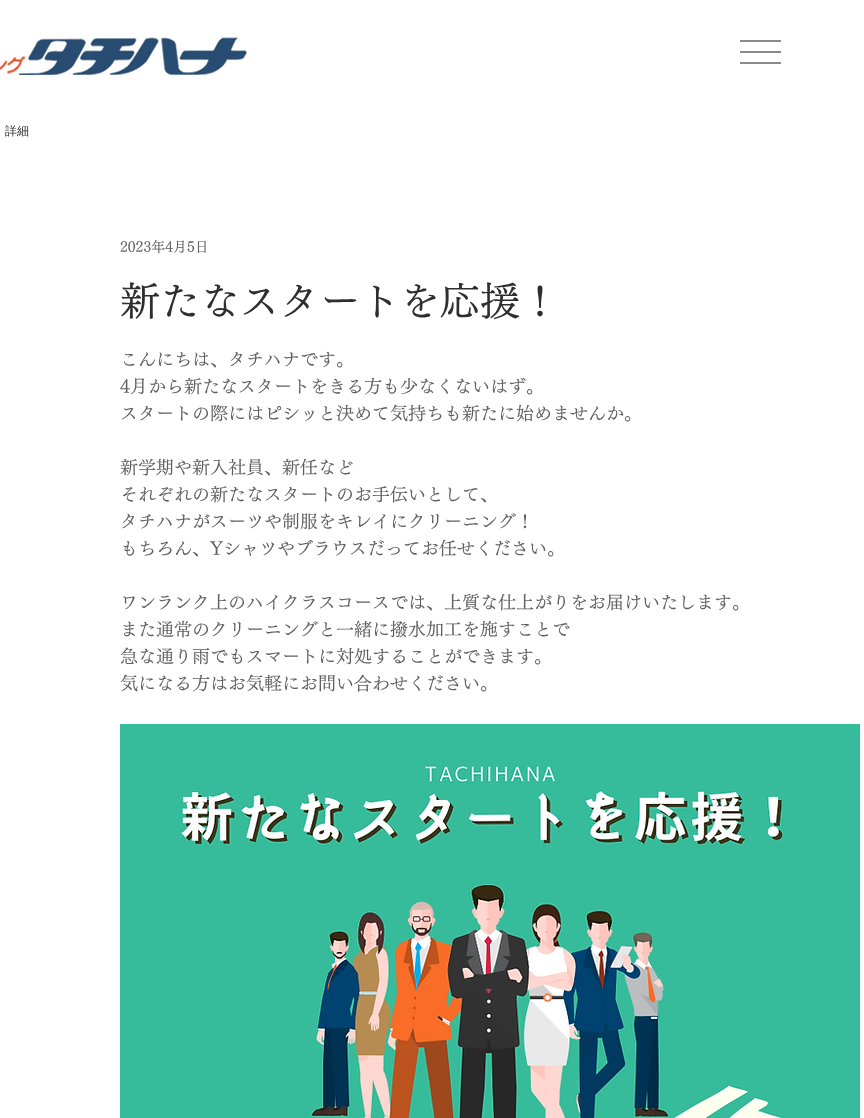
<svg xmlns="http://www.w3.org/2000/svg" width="864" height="1118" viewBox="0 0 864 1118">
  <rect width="100%" height="100%" fill="#ffffff"/>
  <image x="0" y="37" width="247" height="38" href="img1.png"/>
  <rect x="740" y="40" width="41" height="2" fill="#8b8a8a"/>
  <rect x="740" y="51" width="41" height="2" fill="#8b8a8a"/>
  <rect x="740" y="62" width="41" height="2" fill="#8b8a8a"/>
  <text x="5" y="135" font-family="WenQuanYi Zen Hei" font-size="12" font-weight="500" fill="#2f2e2e">詳細</text>
  <text x="120" y="252" font-family="'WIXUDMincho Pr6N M'" font-size="14" font-weight="500" fill="#605e5e">2023年4月5日</text>
  <text x="120" y="316" font-family="'WIXUDMincho Pr6N M'" font-size="40" font-weight="500" fill="#2f2e2e">新たなスタートを応援！</text>
  <text x="120" y="366" font-family="'WIXUDMincho Pr6N M'" font-size="18" font-weight="500" fill="#605e5e">こんにちは、タチハナです。</text>
  <text x="120" y="393" font-family="'WIXUDMincho Pr6N M'" font-size="18" font-weight="500" fill="#605e5e">4月から新たなスタートをきる方も少なくないはず。</text>
  <text x="120" y="420" font-family="'WIXUDMincho Pr6N M'" font-size="18" font-weight="500" fill="#605e5e">スタートの際にはピシッと決めて気持ちも新たに始めませんか。</text>
  <text x="120" y="474" font-family="'WIXUDMincho Pr6N M'" font-size="18" font-weight="500" fill="#605e5e">新学期や新入社員、新任など</text>
  <text x="120" y="501" font-family="'WIXUDMincho Pr6N M'" font-size="18" font-weight="500" fill="#605e5e">それぞれの新たなスタートのお手伝いとして、</text>
  <text x="120" y="528" font-family="'WIXUDMincho Pr6N M'" font-size="18" font-weight="500" fill="#605e5e">タチハナがスーツや制服をキレイにクリーニング！</text>
  <text x="120" y="555" font-family="'WIXUDMincho Pr6N M'" font-size="18" font-weight="500" fill="#605e5e">もちろん、Yシャツやブラウスだってお任せください。</text>
  <text x="120" y="609" font-family="'WIXUDMincho Pr6N M'" font-size="18" font-weight="500" fill="#605e5e">ワンランク上のハイクラスコースでは、上質な仕上がりをお届けいたします。</text>
  <text x="120" y="636" font-family="'WIXUDMincho Pr6N M'" font-size="18" font-weight="500" fill="#605e5e">また通常のクリーニングと一緒に撥水加工を施すことで</text>
  <text x="120" y="663" font-family="'WIXUDMincho Pr6N M'" font-size="18" font-weight="500" fill="#605e5e">急な通り雨でもスマートに対処することができます。</text>
  <text x="120" y="690" font-family="'WIXUDMincho Pr6N M'" font-size="18" font-weight="500" fill="#605e5e">気になる方はお気軽にお問い合わせください。</text>
  <image x="120" y="724" width="740" height="394" href="img2.png"/>
</svg>
